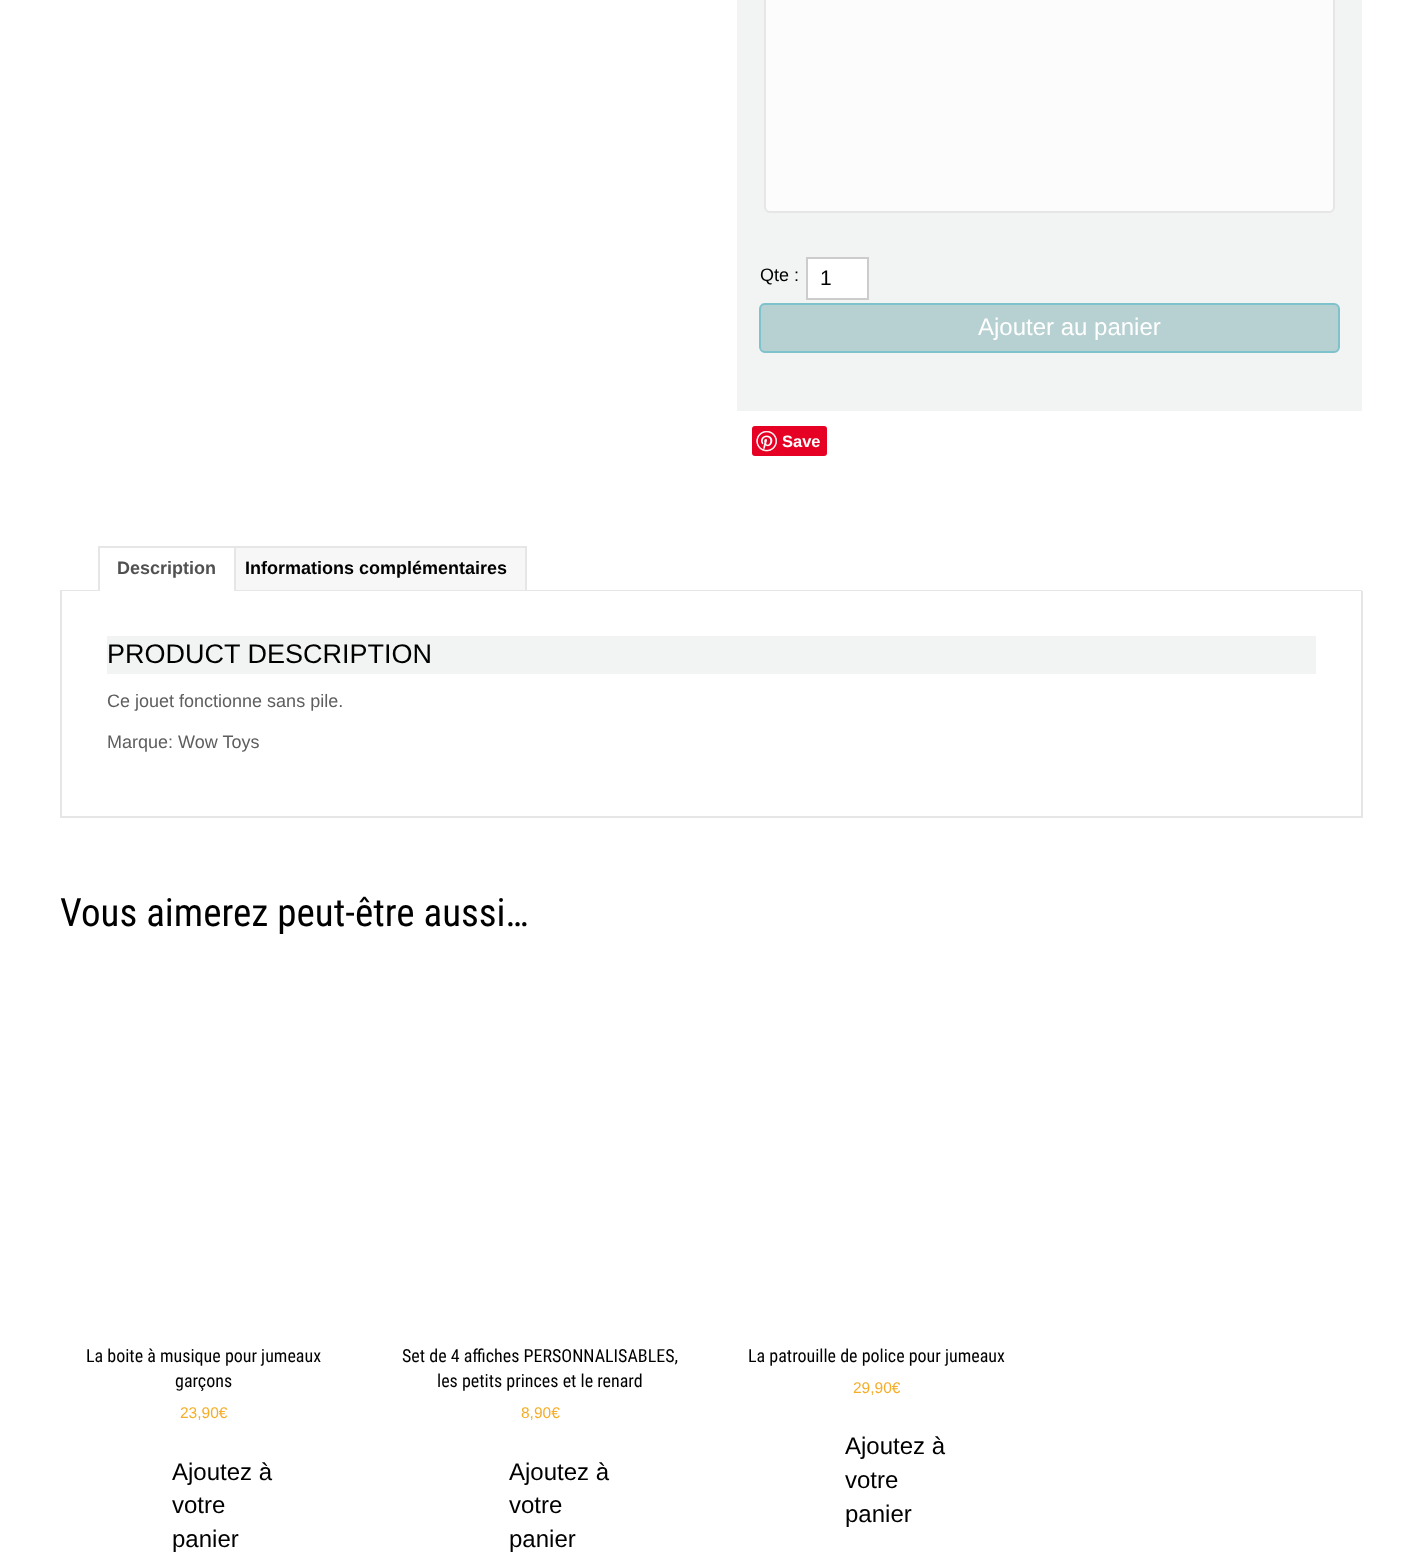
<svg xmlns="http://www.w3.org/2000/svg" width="1421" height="1557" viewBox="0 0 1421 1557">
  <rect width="100%" height="100%" fill="#ffffff"/>
  <rect x="737" y="0" width="625" height="411" fill="#f2f3f3"/>
  <rect x="765" y="-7" width="569" height="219" rx="5" fill="#fcfcfc" stroke="#e6e6e6" stroke-width="2"/>
  <text x="760" y="281" font-family="Liberation Sans" font-size="18" fill="#010000">Qte :</text>
  <rect x="807" y="258" width="61" height="41" fill="#ffffff" stroke="#cccccc" stroke-width="2"/>
  <text x="820" y="285" font-family="Liberation Sans" font-size="21" fill="#010000">1</text>
  <rect x="760" y="304" width="579" height="48" rx="5" fill="#b7d0d1" stroke="#7ec2cc" stroke-width="2"/>
  <text x="978" y="335" font-family="Liberation Sans" font-size="24" fill="#ffffff">Ajouter au panier</text>
  <rect x="752" y="426" width="75" height="30" rx="3" fill="#e60023"/>
  <image x="756" y="431" width="21" height="21" href="img1.png"/>
  <text x="782" y="447" font-family="Liberation Sans" font-size="16.5" font-weight="bold" fill="#ffffff">Save</text>
  <rect x="98" y="546" width="429" height="2" fill="#e6e6e6"/>
  <rect x="525" y="546" width="2" height="45" fill="#e6e6e6"/>
  <rect x="60" y="590" width="1302" height="1" fill="#e6e6e6"/>
  <rect x="100" y="590" width="134" height="1" fill="#ffffff"/>
  <rect x="234" y="546" width="2" height="45" fill="#e6e6e6"/>
  <rect x="98" y="546" width="2" height="45" fill="#e6e6e6"/>
  <text x="117" y="574" font-family="Liberation Sans" font-size="18" font-weight="bold" fill="#515151">Description</text>
  <rect x="236" y="548" width="289" height="42" fill="#f7f7f7"/>
  <text x="245" y="574" font-family="Liberation Sans" font-size="18" font-weight="bold" fill="#010000">Informations complémentaires</text>
  <rect x="1361" y="591" width="2" height="227" fill="#e6e6e6"/>
  <rect x="60" y="816" width="1302" height="2" fill="#e6e6e6"/>
  <rect x="60" y="591" width="2" height="227" fill="#e6e6e6"/>
  <rect x="107" y="636" width="1209" height="38" fill="#f2f3f3"/>
  <text x="107" y="663" font-family="Liberation Sans" font-size="27" fill="#010000">PRODUCT DESCRIPTION</text>
  <text x="107" y="707" font-family="Liberation Sans" font-size="18" fill="#5e5e5e">Ce jouet fonctionne sans pile.</text>
  <text x="107" y="748" font-family="Liberation Sans" font-size="18" fill="#5e5e5e">Marque: Wow Toys</text>
  <text x="60" y="926" font-family="Roboto Condensed" font-size="39" fill="#010000">Vous aimerez peut-être aussi…</text>
  <text x="86" y="1362" font-family="Roboto Condensed" font-size="18" fill="#010000">La boite à musique pour jumeaux</text>
  <text x="175" y="1387" font-family="Roboto Condensed" font-size="18" fill="#010000">garçons</text>
  <text x="180" y="1418" font-family="Liberation Sans" font-size="15.5" fill="#f5ad28">23,90€</text>
  <text x="172" y="1480" font-family="Liberation Sans" font-size="24" fill="#010000">Ajoutez à</text>
  <text x="172" y="1513" font-family="Liberation Sans" font-size="24" fill="#010000">votre</text>
  <text x="172" y="1547" font-family="Liberation Sans" font-size="24" fill="#010000">panier</text>
  <text x="402" y="1362" font-family="Roboto Condensed" font-size="18" fill="#010000">Set de 4 affiches PERSONNALISABLES,</text>
  <text x="437" y="1387" font-family="Roboto Condensed" font-size="18" fill="#010000">les petits princes et le renard</text>
  <text x="521" y="1418" font-family="Liberation Sans" font-size="15.5" fill="#f5ad28">8,90€</text>
  <text x="509" y="1480" font-family="Liberation Sans" font-size="24" fill="#010000">Ajoutez à</text>
  <text x="509" y="1513" font-family="Liberation Sans" font-size="24" fill="#010000">votre</text>
  <text x="509" y="1547" font-family="Liberation Sans" font-size="24" fill="#010000">panier</text>
  <text x="748" y="1362" font-family="Roboto Condensed" font-size="18" fill="#010000">La patrouille de police pour jumeaux</text>
  <text x="853" y="1393" font-family="Liberation Sans" font-size="15.5" fill="#f5ad28">29,90€</text>
  <text x="845" y="1454" font-family="Liberation Sans" font-size="24" fill="#010000">Ajoutez à</text>
  <text x="845" y="1488" font-family="Liberation Sans" font-size="24" fill="#010000">votre</text>
  <text x="845" y="1522" font-family="Liberation Sans" font-size="24" fill="#010000">panier</text>
</svg>
